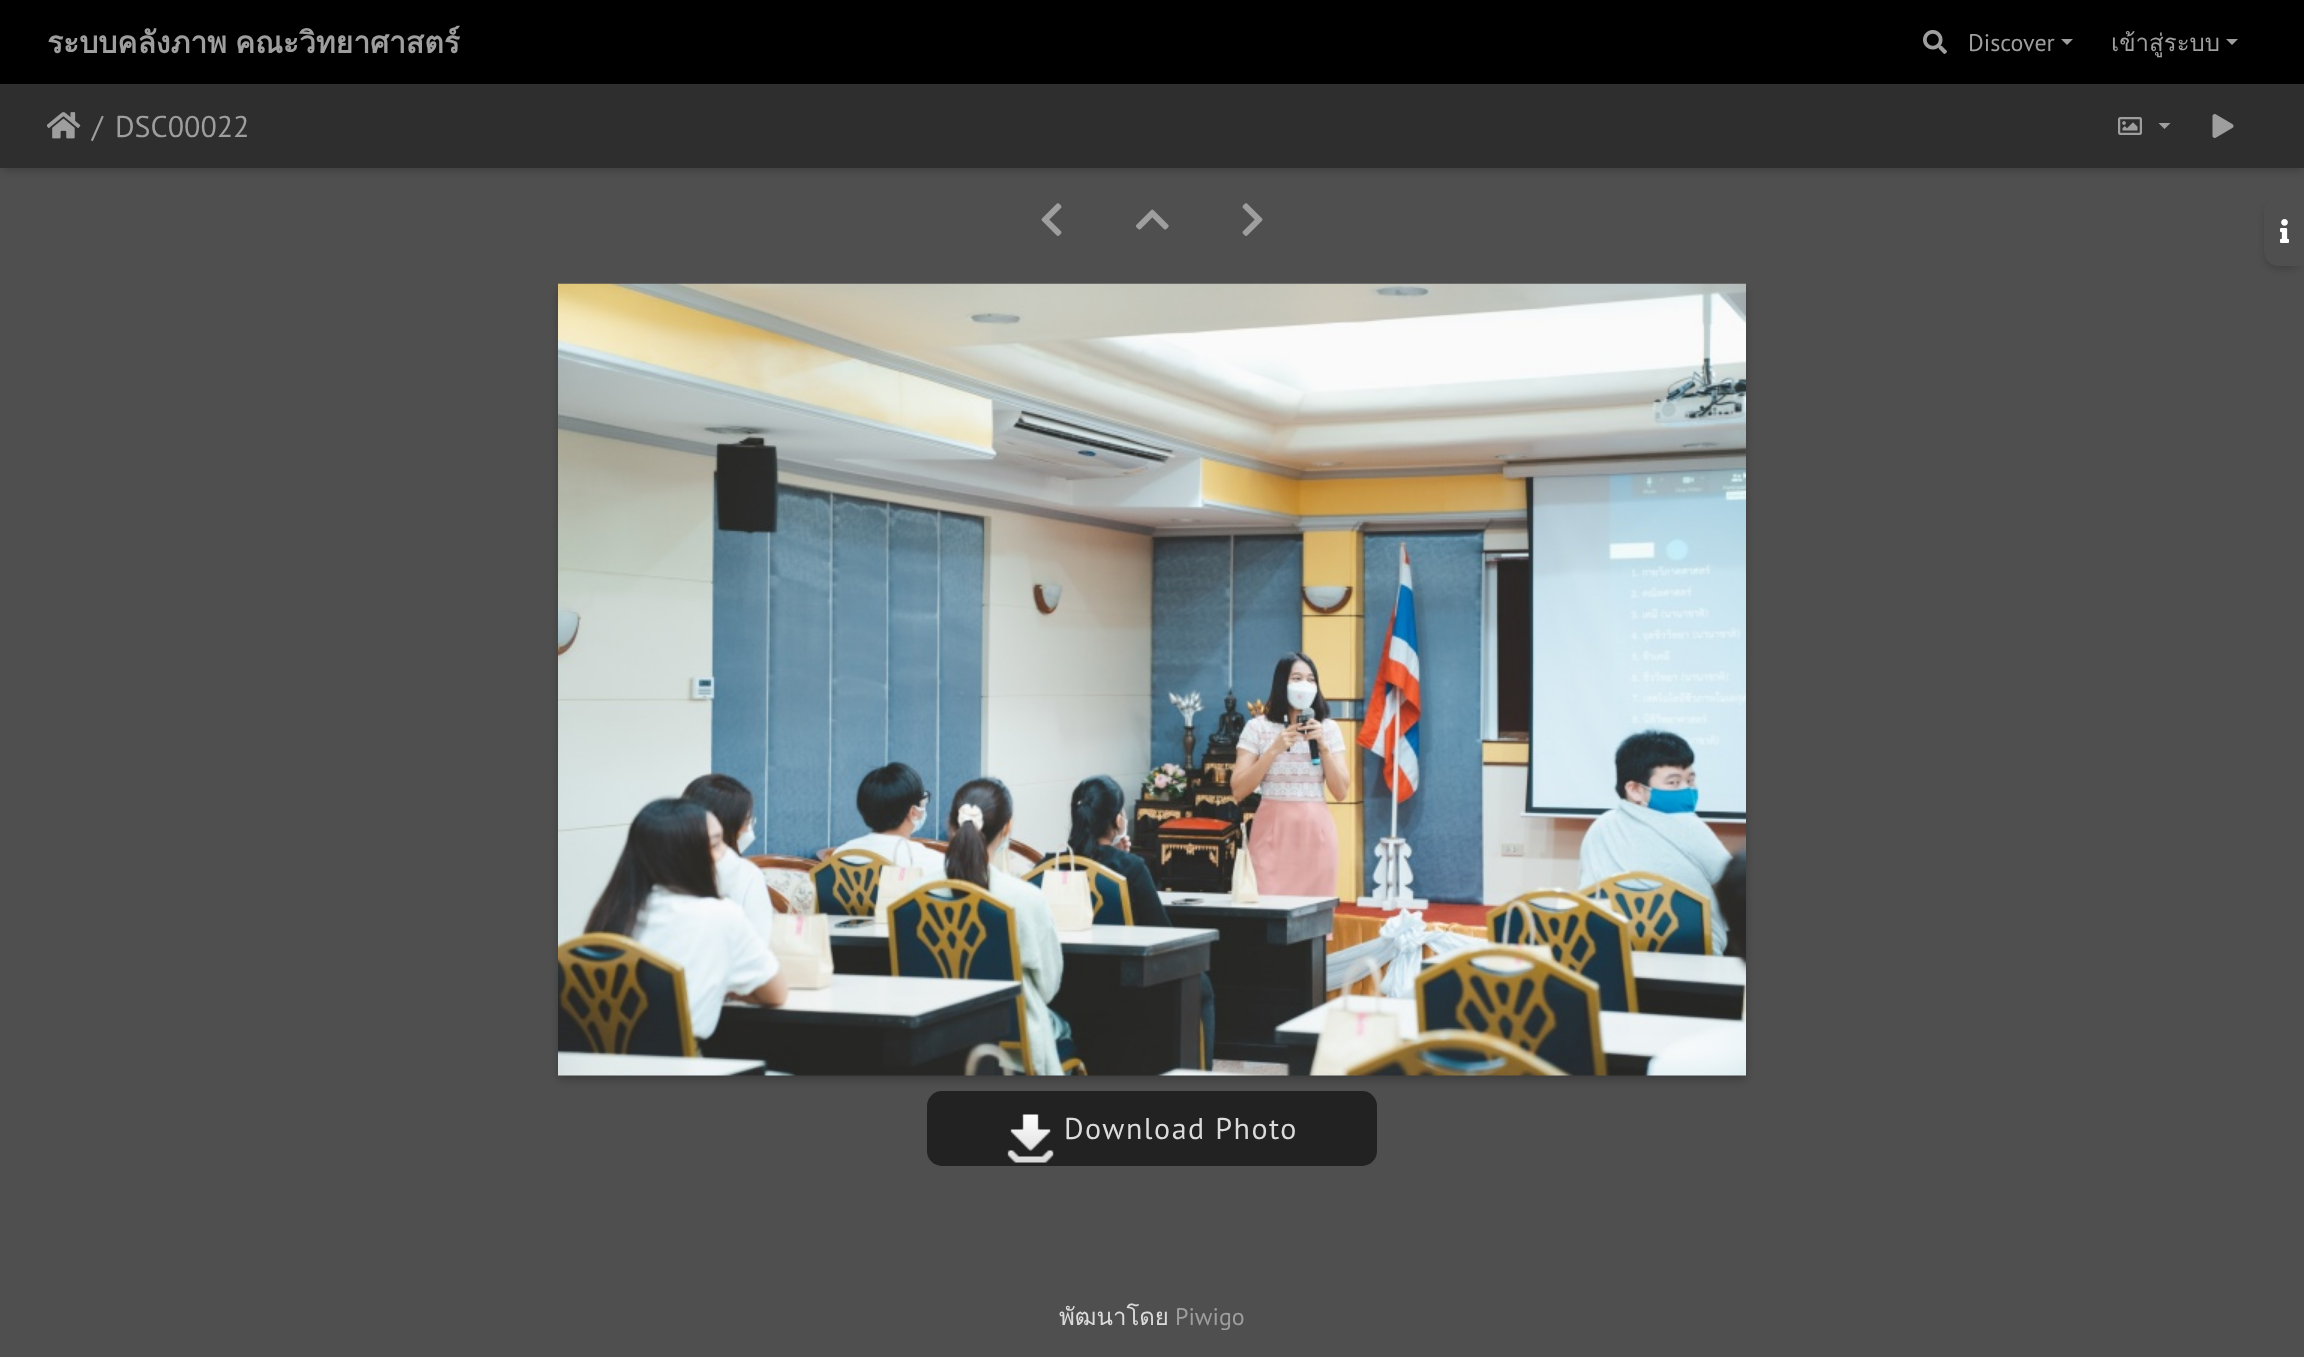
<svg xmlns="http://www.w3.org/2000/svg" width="2304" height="1357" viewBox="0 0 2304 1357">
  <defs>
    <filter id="blur1" x="-50%" y="-200%" width="200%" height="500%"><feGaussianBlur stdDeviation="4"/></filter>
    <clipPath id="clip1"><rect x="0" y="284" width="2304" height="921"/></clipPath>
    <filter id="blur2" x="-50%" y="-200%" width="200%" height="500%"><feGaussianBlur stdDeviation="4.5"/></filter>
  </defs>
  <rect width="100%" height="100%" fill="#4f4f4f"/>
  <rect x="2" y="90" width="2301" height="81" fill="#000000" fill-opacity="0.2" filter="url(#blur1)"/>
  <rect x="0" y="0" width="2304" height="84" fill="#000000"/>
  <text x="47" y="53" word-spacing="-2" font-family="Loma" font-size="30" font-weight="bold" fill="#9e9e9e">ระบบคลังภาพ คณะวิทยาศาสตร์</text>
  <image x="1923" y="30" width="24" height="24" href="img1.png"/>
  <text x="1968" y="51" font-family="PT Sans" font-size="24" fill="#9e9e9e">Discover</text>
  <path d="M2061 39H2073L2067 45Z" fill="#9e9e9e"/>
  <text x="2111" y="51" font-family="Loma" font-size="24" fill="#9e9e9e">เข้าสู่ระบบ</text>
  <path d="M2226 39H2238L2232 45Z" fill="#9e9e9e"/>
  <rect x="0" y="84" width="2304" height="84" fill="#2e2e2e"/>
  <image x="47" y="112" width="34" height="27" href="img2.png"/>
  <text x="92" y="137" font-family="PT Sans" font-size="30" fill="#9e9e9e">/</text>
  <text x="115" y="137" font-family="PT Sans" font-size="30" fill="#9e9e9e">DSC00022</text>
  <image x="2118" y="117" width="24" height="18" href="img3.png"/>
  <path d="M2158.5 123H2170.5L2164.5 129Z" fill="#9e9e9e"/>
  <image x="2212" y="114" width="22" height="24" href="img4.png"/>
  <image x="1041" y="203" width="21" height="33" href="img5.png"/>
  <image x="1136" y="209" width="33" height="21" href="img6.png"/>
  <image x="1242" y="203" width="21" height="33" href="img7.png"/>
  <rect x="2265" y="203" width="38" height="66" rx="14" fill="#000000" fill-opacity="0.2" filter="url(#blur1)"/>
  <path d="M2279 197H2304V266H2279C2270.5 266 2264 259.5 2264 251V212C2264 203.5 2270.5 197 2279 197Z" fill="#4f4f4f"/>
  <path d="M2278 196H2304V266H2278C2270 266 2264 259 2264 250V212C2264 203 2270 196 2278 196ZM2278 198H2304V264H2278C2271 264 2265 258 2265 250V212C2265 204 2271 198 2278 198Z" fill="#4f4f4f" fill-rule="evenodd"/>
  <image x="2280" y="219" width="9" height="24" href="img8.png"/>
  <rect x="927" y="1091" width="450" height="75" rx="15" fill="#222222"/>
  <g clip-path="url(#clip1)">
    <rect x="558" y="288" width="1188" height="792" fill="#000000" fill-opacity="0.23" filter="url(#blur2)"/>
  </g>
  <image x="558" y="283" width="1188" height="793" href="img9.png"/>
  <image x="1007" y="1114" width="47" height="49" href="img10.png"/>
  <text x="1064" y="1139" font-family="PT Sans" font-size="30" letter-spacing="1.5" fill="#dbdbdb">Download Photo</text>
  <text x="1059" y="1325" font-family="Loma" font-size="24" fill="#dbdbdb">พัฒนาโดย</text>
  <text x="1175" y="1325" font-family="PT Sans" font-size="24" fill="#9e9e9e">Piwigo</text>
</svg>
